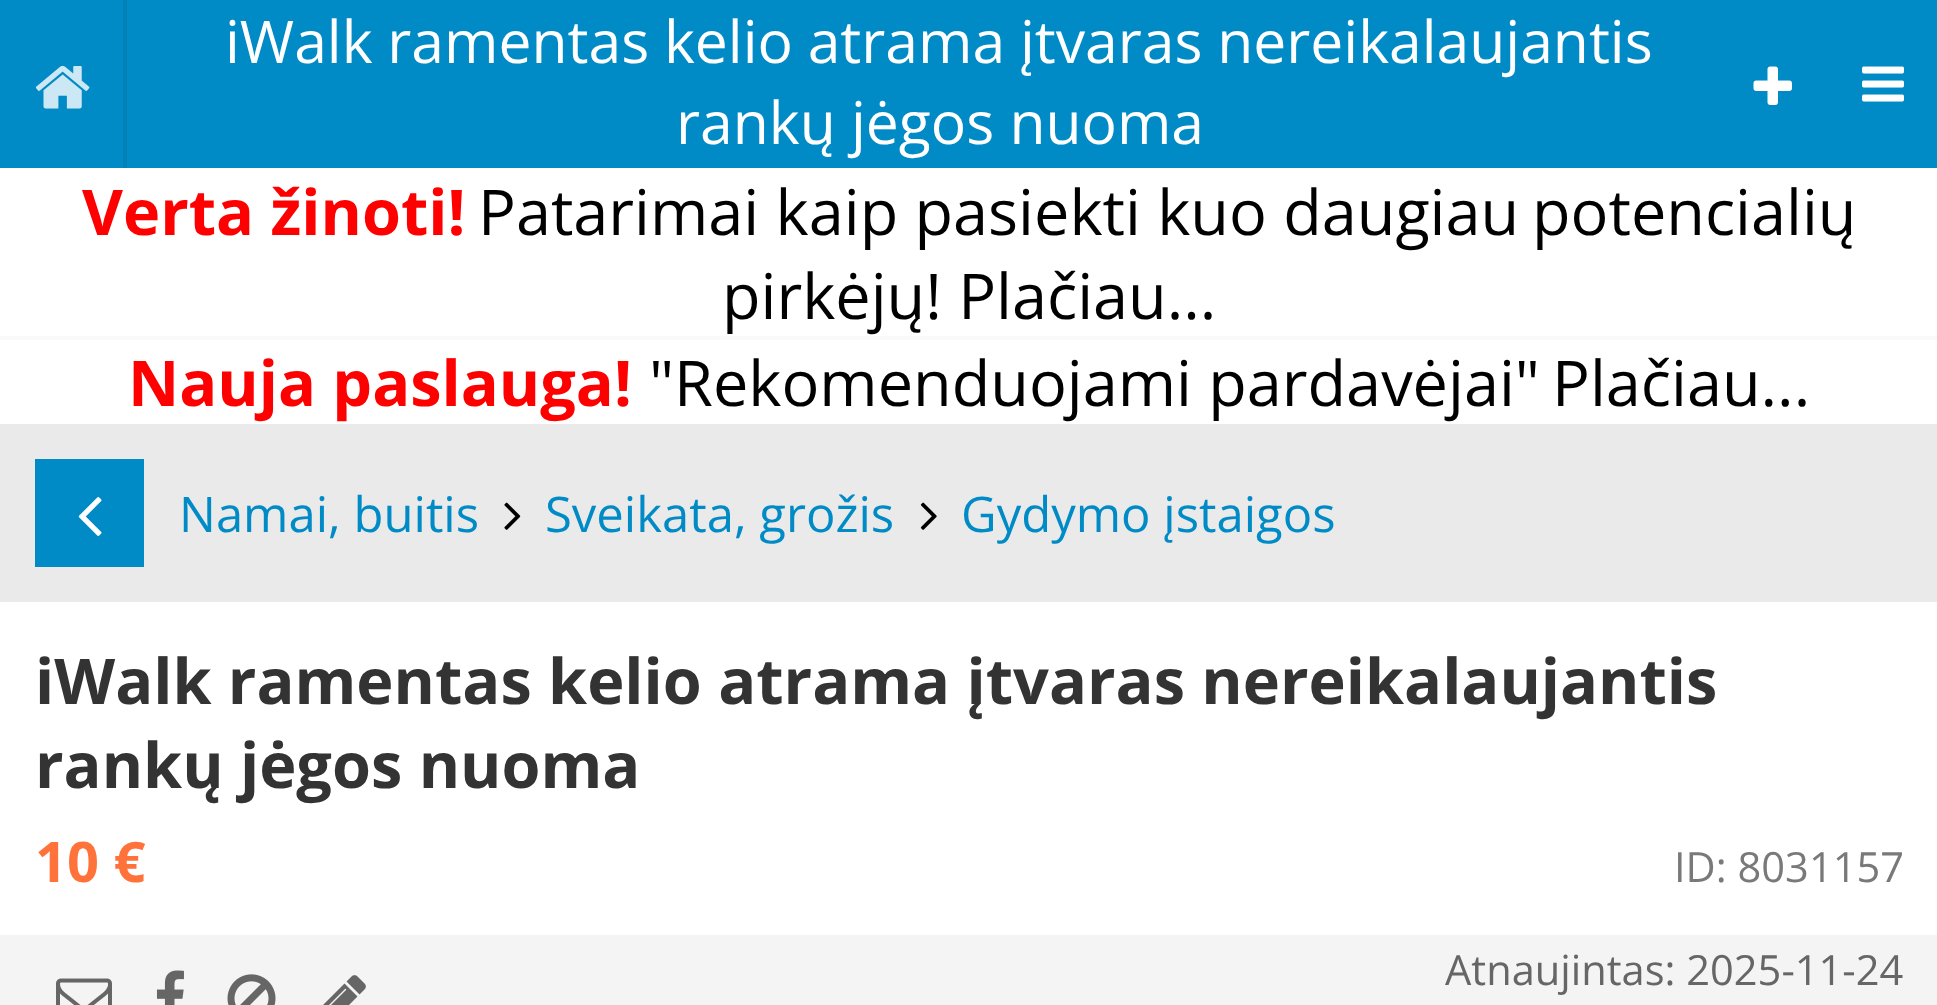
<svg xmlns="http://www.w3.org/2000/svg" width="1937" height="1005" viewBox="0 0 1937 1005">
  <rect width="100%" height="100%" fill="#ffffff"/>
  <rect x="0" y="0" width="1937" height="168" fill="#008bc6"/>
  <rect x="123" y="0" width="4" height="168" fill="#0081b8"/>
  <image x="35" y="65" width="55" height="44" href="img1.png"/>
  <text x="225" y="63" word-spacing="-0.5" font-family="Open Sans" font-size="58.8" fill="#ffffff">iWalk ramentas kelio atrama įtvaras nereikalaujantis</text>
  <text x="676" y="144" font-family="Open Sans" font-size="58.8" fill="#ffffff">rankų jėgos nuoma</text>
  <image x="1753" y="66" width="39" height="39" href="img2.png"/>
  <image x="1862" y="66" width="42" height="36" href="img3.png"/>
  <text x="82" y="235" font-family="Open Sans" font-size="63" font-weight="bold" fill="#ff0000">Verta žinoti!</text>
  <text x="478" y="235" font-family="Open Sans" font-size="63" fill="#000000">Patarimai kaip pasiekti kuo daugiau</text>
  <text x="1532" y="235" font-family="Open Sans" font-size="63" fill="#000000">potencialių</text>
  <text x="722" y="319" font-family="Open Sans" font-size="63" fill="#000000">pirkėjų! Plačiau...</text>
  <rect x="0" y="336" width="1937" height="4" fill="#fafafa"/>
  <text x="128" y="406" font-family="Open Sans" font-size="63" font-weight="bold" fill="#ff0000">Nauja paslauga!</text>
  <text x="649" y="406" font-family="Open Sans" font-size="63" fill="#000000">"Rekomenduojami pardavėjai"</text>
  <text x="1552" y="406" font-family="Open Sans" font-size="63" fill="#000000">Plačiau...</text>
  <rect x="0" y="424" width="1937" height="178" fill="#eaeaea"/>
  <rect x="35" y="459" width="109" height="108" fill="#008bc6"/>
  <image x="78" y="497" width="24" height="39" href="img4.png"/>
  <text x="179" y="532" font-family="Open Sans" font-size="49" fill="#008bc6">Namai, buitis</text>
  <image x="504" y="502" width="17" height="28" href="img5.png"/>
  <text x="545" y="532" font-family="Open Sans" font-size="49" fill="#008bc6">Sveikata, grožis</text>
  <image x="920" y="502" width="17" height="28" href="img6.png"/>
  <text x="961" y="532" font-family="Open Sans" font-size="49" fill="#008bc6">Gydymo įstaigos</text>
  <text x="35" y="704" font-family="Open Sans" font-size="63" font-weight="bold" fill="#333333">iWalk ramentas kelio atrama įtvaras nereikalaujantis</text>
  <text x="35" y="788" font-family="Open Sans" font-size="63" font-weight="bold" fill="#333333">rankų jėgos nuoma</text>
  <text x="35" y="882" font-family="Open Sans" font-size="56" font-weight="bold" fill="#ff723a">10 €</text>
  <text x="1674" y="882" font-family="Open Sans" font-size="41.6" fill="#797979">ID: 8031157</text>
  <rect x="0" y="935" width="1937" height="70" fill="#f4f4f4"/>
  <image x="56" y="978" width="56" height="27" href="img7.png"/>
  <image x="156" y="970" width="28" height="35" href="img8.png"/>
  <image x="227" y="974" width="49" height="31" href="img9.png"/>
  <image x="323" y="975" width="43" height="30" href="img10.png"/>
  <text x="1445" y="985" font-family="Open Sans" font-size="41.6" fill="#666666">Atnaujintas: 2025-11-24</text>
</svg>
